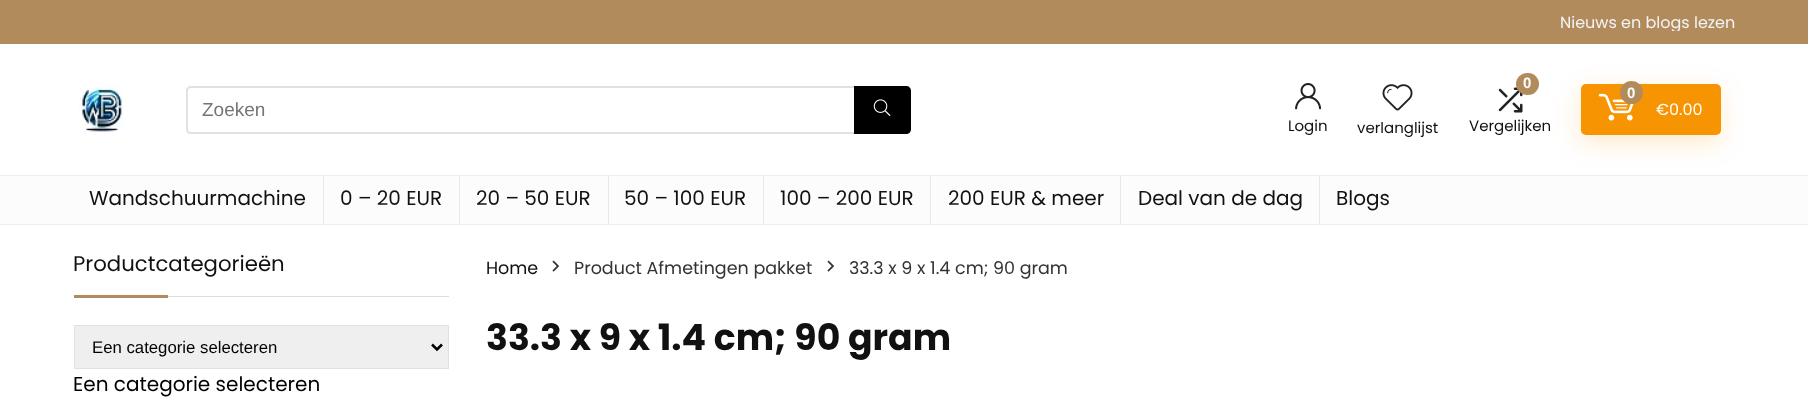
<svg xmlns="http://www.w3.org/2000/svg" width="1808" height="401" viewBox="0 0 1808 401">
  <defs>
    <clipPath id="clip1"><rect x="1560" y="13" width="176" height="18"/></clipPath>
    <filter id="blur1" x="-50%" y="-200%" width="200%" height="500%"><feGaussianBlur stdDeviation="12"/></filter>
  </defs>
  <rect width="100%" height="100%" fill="#ffffff"/>
  <rect x="0" y="0" width="1808" height="44" fill="#b28b5d"/>
  <g clip-path="url(#clip1)">
    <text x="1560" y="28" font-family="Poppins" font-size="16" fill="#f4f4f4">Nieuws en blogs lezen</text>
  </g>
  <image x="79" y="82" width="45" height="50" href="img1.png"/>
  <path d="M191 86H854V134H191C188 134 186 132 186 129V91C186 88 188 86 191 86ZM191 88H854V132H191C189 132 188 131 188 129V91C188 89 189 88 191 88Z" fill="#e1e1e1" fill-rule="evenodd"/>
  <text x="202" y="116" font-family="Liberation Sans" font-size="19" fill="#757575">Zoeken</text>
  <path d="M854 86H906C909 86 911 88 911 91V129C911 132 909 134 906 134H854Z" fill="#000000"/>
  <image x="873" y="99" width="18" height="17" href="img2.png"/>
  <image x="1498" y="87" width="25" height="26" href="img3.png"/>
  <rect x="1516" y="73" width="23" height="22" rx="11" fill="#b28b5d"/>
  <text x="1523" y="88" font-family="Liberation Sans" font-size="15" font-weight="bold" fill="#ffffff">0</text>
  <text x="1469" y="131" font-family="Poppins" font-size="15" fill="#111111">Vergelijken</text>
  <rect x="0" y="176" width="1808" height="48" fill="#fcfcfc"/>
  <rect x="0" y="175" width="1808" height="1" fill="#eeeeee"/>
  <rect x="1580" y="91" width="140" height="52" rx="5" fill="#f79401" fill-opacity="0.2" filter="url(#blur1)"/>
  <rect x="1581" y="84" width="140" height="51" rx="5" fill="#f79401"/>
  <image x="1598" y="93" width="36" height="28" href="img4.png"/>
  <circle cx="1631.5" cy="92.5" r="11.5" fill="#b28b5d"/>
  <text x="1627" y="98" font-family="Liberation Sans" font-size="15" font-weight="bold" fill="#ffffff">0</text>
  <text x="1656" y="115" font-family="Poppins" font-size="16" fill="#ffffff">€0.00</text>
  <image x="1295" y="83" width="27" height="27" href="img5.png"/>
  <text x="1288" y="131" font-family="Poppins" font-size="15" fill="#111111">Login</text>
  <image x="1382" y="84" width="31" height="27" href="img6.png"/>
  <text x="1357" y="133" font-family="Poppins" font-size="15" fill="#111111">verlanglijst</text>
  <rect x="0" y="224" width="1808" height="1" fill="#eeeeee"/>
  <rect x="323" y="176" width="1" height="48" fill="#e8e8e8"/>
  <text x="89" y="205" font-family="Poppins" font-size="20" fill="#111111">Wandschuurmachine</text>
  <rect x="459" y="176" width="1" height="48" fill="#e8e8e8"/>
  <text x="340" y="205" font-family="Poppins" font-size="20" fill="#111111">0 – 20 EUR</text>
  <rect x="608" y="176" width="1" height="48" fill="#e8e8e8"/>
  <text x="476" y="205" font-family="Poppins" font-size="20" fill="#111111">20 – 50 EUR</text>
  <rect x="763" y="176" width="1" height="48" fill="#e8e8e8"/>
  <text x="624" y="205" font-family="Poppins" font-size="20" fill="#111111">50 – 100 EUR</text>
  <rect x="930" y="176" width="1" height="48" fill="#e8e8e8"/>
  <text x="780" y="205" font-family="Poppins" font-size="20" fill="#111111">100 – 200 EUR</text>
  <rect x="1120" y="176" width="1" height="48" fill="#e8e8e8"/>
  <text x="948" y="205" font-family="Poppins" font-size="20" fill="#111111">200 EUR &amp; meer</text>
  <rect x="1319" y="176" width="1" height="48" fill="#e8e8e8"/>
  <text x="1138" y="205" font-family="Poppins" font-size="20" fill="#111111">Deal van de dag</text>
  <text x="1336" y="205" font-family="Poppins" font-size="20" fill="#111111">Blogs</text>
  <rect x="168" y="296" width="281" height="1" fill="#dddddd"/>
  <text x="73" y="271" font-family="Poppins" font-size="21.25" fill="#111111">Productcategorieën</text>
  <rect x="74" y="295" width="94" height="3" fill="#b28b5d"/>
  <rect x="74.5" y="325.5" width="374" height="43" fill="#efefef" stroke="#e1e1e1"/>
  <path d="M432 344.5L437 349.5L442 344.5" fill="none" stroke="#000000" stroke-width="2.5"/>
  <text x="92" y="353" font-family="Liberation Sans" font-size="16.75" fill="#000000">Een categorie selecteren</text>
  <text x="73" y="391" font-family="Poppins" font-size="20" fill="#000000">Een categorie selecteren</text>
  <text x="486" y="274" font-family="Poppins" font-size="17.5" fill="#111111">Home</text>
  <image x="552" y="260" width="7" height="12" href="img7.png"/>
  <text x="574" y="274" font-family="Poppins" font-size="17.5" fill="#333333">Product Afmetingen pakket</text>
  <image x="827" y="260" width="7" height="12" href="img7.png"/>
  <text x="849" y="274" font-family="Poppins" font-size="17.5" fill="#333333">33.3 x 9 x 1.4 cm; 90 gram</text>
  <text x="486" y="350" font-family="Poppins" font-size="36.25" font-weight="bold" fill="#111111">33.3 x 9 x 1.4 cm; 90 gram</text>
</svg>
